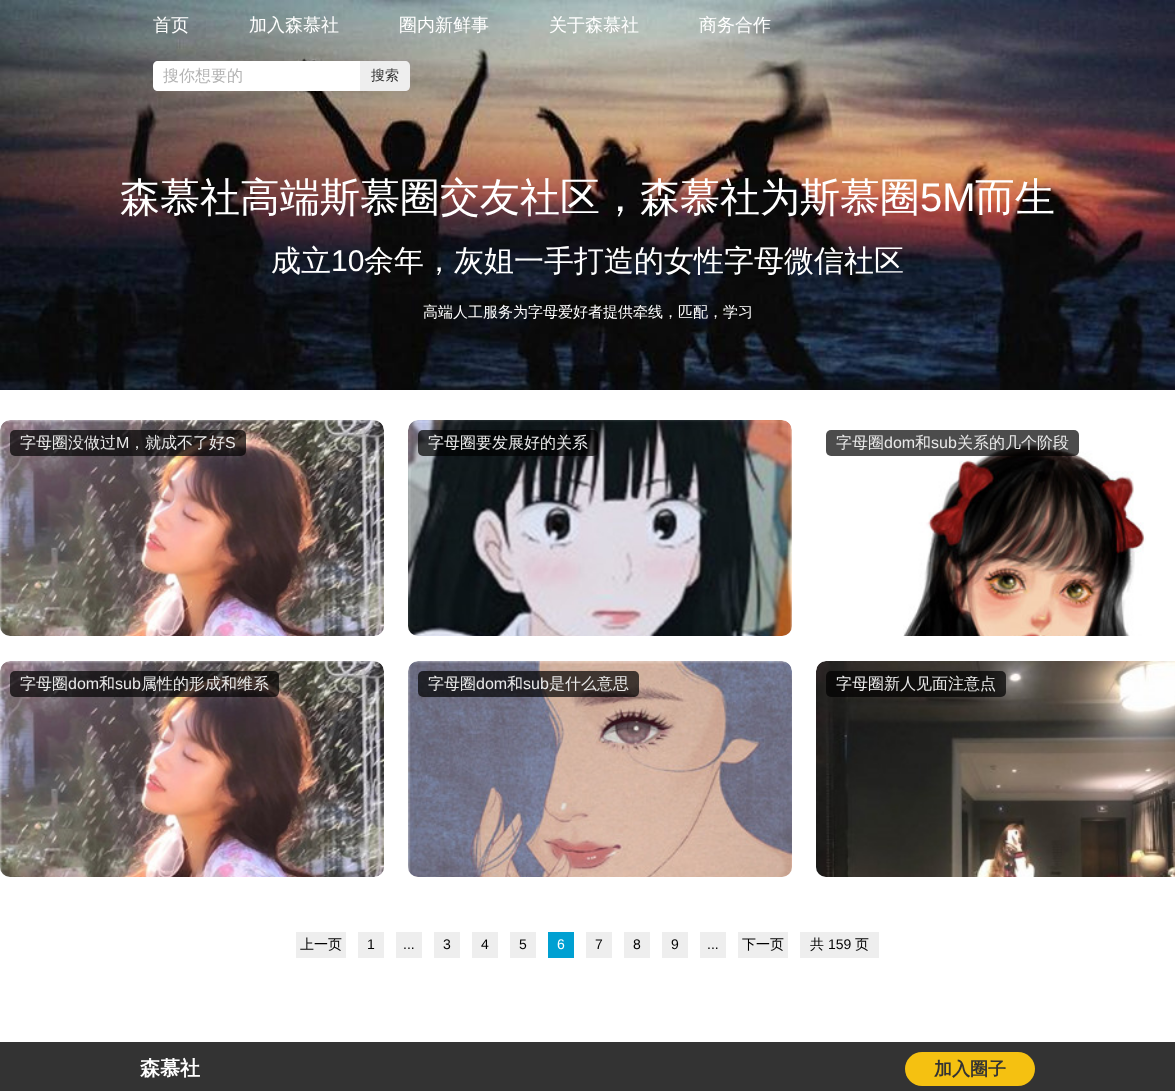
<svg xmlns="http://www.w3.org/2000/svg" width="1175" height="1091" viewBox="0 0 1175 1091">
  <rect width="100%" height="100%" fill="#ffffff"/>
  <image x="0" y="0" width="1175" height="390" href="img1.png"/>
  <text x="153" y="31" font-family="WenQuanYi Zen Hei" font-size="18" font-weight="500" fill="#ffffff">首页</text>
  <text x="249" y="31" font-family="WenQuanYi Zen Hei" font-size="18" font-weight="500" fill="#ffffff">加入森慕社</text>
  <text x="399" y="31" font-family="WenQuanYi Zen Hei" font-size="18" font-weight="500" fill="#ffffff">圈内新鲜事</text>
  <text x="549" y="31" font-family="WenQuanYi Zen Hei" font-size="18" font-weight="500" fill="#ffffff">关于森慕社</text>
  <text x="699" y="31" font-family="WenQuanYi Zen Hei" font-size="18" font-weight="500" fill="#ffffff">商务合作</text>
  <path d="M158 61H360V91H158C155 91 153 89 153 86V66C153 63 155 61 158 61Z" fill="#ffffff"/>
  <text x="163" y="81" font-family="WenQuanYi Zen Hei" font-size="16" font-weight="500" fill="#b3b3b3">搜你想要的</text>
  <path d="M360 61H405C408 61 410 63 410 66V86C410 89 408 91 405 91H360Z" fill="#eeeeee"/>
  <text x="371" y="80" font-family="WenQuanYi Zen Hei" font-size="14" font-weight="500" fill="#333333">搜索</text>
  <text x="120" y="211" font-family="WenQuanYi Zen Hei" font-size="40" font-weight="500" fill="#ffffff">森慕社高端斯慕圈交友社区，森慕社为斯慕圈</text>
  <text x="920" y="211" font-family="Liberation Sans" font-size="40" fill="#ffffff">5M</text>
  <text x="975" y="211" font-family="WenQuanYi Zen Hei" font-size="40" font-weight="500" fill="#ffffff">而生</text>
  <text x="271" y="271" font-family="WenQuanYi Zen Hei" font-size="30" font-weight="500" fill="#ffffff">成立</text>
  <text x="331" y="271" font-family="Liberation Sans" font-size="30" fill="#ffffff">10</text>
  <text x="364" y="271" font-family="WenQuanYi Zen Hei" font-size="30" font-weight="500" fill="#ffffff">余年，灰姐一手打造的女性字母微信社区</text>
  <text x="423" y="317" font-family="WenQuanYi Zen Hei" font-size="15" font-weight="500" fill="#ffffff">高端人工服务为字母爱好者提供牵线，匹配，学习</text>
  <image x="0" y="420" width="384" height="216" href="img2.png"/>
  <rect x="10" y="430" width="236" height="26" rx="5" fill="#000000" fill-opacity="0.7"/>
  <text x="20" y="448" font-family="WenQuanYi Zen Hei" font-size="16" font-weight="500" fill="#e9e9e9">字母圈没做过</text>
  <text x="116" y="448" font-family="Liberation Sans" font-size="16" fill="#e9e9e9">M</text>
  <text x="129" y="448" font-family="WenQuanYi Zen Hei" font-size="16" font-weight="500" fill="#e9e9e9">，就成不了好</text>
  <text x="225" y="448" font-family="Liberation Sans" font-size="16" fill="#e9e9e9">S</text>
  <image x="408" y="420" width="384" height="216" href="img3.png"/>
  <rect x="418" y="430" width="180" height="26" rx="5" fill="#000000" fill-opacity="0.7"/>
  <text x="428" y="448" font-family="WenQuanYi Zen Hei" font-size="16" font-weight="500" fill="#e9e9e9">字母圈要发展好的关系</text>
  <image x="903" y="443" width="243" height="193" href="img4.png"/>
  <rect x="826" y="430" width="253" height="26" rx="5" fill="#000000" fill-opacity="0.7"/>
  <text x="836" y="448" font-family="WenQuanYi Zen Hei" font-size="16" font-weight="500" fill="#e9e9e9">字母圈</text>
  <text x="884" y="448" font-family="Liberation Sans" font-size="16" fill="#e9e9e9">dom</text>
  <text x="915" y="448" font-family="WenQuanYi Zen Hei" font-size="16" font-weight="500" fill="#e9e9e9">和</text>
  <text x="931" y="448" font-family="Liberation Sans" font-size="16" fill="#e9e9e9">sub</text>
  <text x="957" y="448" font-family="WenQuanYi Zen Hei" font-size="16" font-weight="500" fill="#e9e9e9">关系的几个阶段</text>
  <image x="0" y="661" width="384" height="216" href="img2.png"/>
  <rect x="10" y="671" width="269" height="26" rx="5" fill="#000000" fill-opacity="0.7"/>
  <text x="20" y="689" font-family="WenQuanYi Zen Hei" font-size="16" font-weight="500" fill="#e9e9e9">字母圈</text>
  <text x="68" y="689" font-family="Liberation Sans" font-size="16" fill="#e9e9e9">dom</text>
  <text x="99" y="689" font-family="WenQuanYi Zen Hei" font-size="16" font-weight="500" fill="#e9e9e9">和</text>
  <text x="115" y="689" font-family="Liberation Sans" font-size="16" fill="#e9e9e9">sub</text>
  <text x="141" y="689" font-family="WenQuanYi Zen Hei" font-size="16" font-weight="500" fill="#e9e9e9">属性的形成和维系</text>
  <image x="408" y="661" width="384" height="216" href="img5.png"/>
  <rect x="418" y="671" width="221" height="26" rx="5" fill="#000000" fill-opacity="0.7"/>
  <text x="428" y="689" font-family="WenQuanYi Zen Hei" font-size="16" font-weight="500" fill="#e9e9e9">字母圈</text>
  <text x="476" y="689" font-family="Liberation Sans" font-size="16" fill="#e9e9e9">dom</text>
  <text x="507" y="689" font-family="WenQuanYi Zen Hei" font-size="16" font-weight="500" fill="#e9e9e9">和</text>
  <text x="523" y="689" font-family="Liberation Sans" font-size="16" fill="#e9e9e9">sub</text>
  <text x="549" y="689" font-family="WenQuanYi Zen Hei" font-size="16" font-weight="500" fill="#e9e9e9">是什么意思</text>
  <image x="816" y="661" width="359" height="216" href="img6.png"/>
  <rect x="826" y="671" width="180" height="26" rx="5" fill="#000000" fill-opacity="0.7"/>
  <text x="836" y="689" font-family="WenQuanYi Zen Hei" font-size="16" font-weight="500" fill="#e9e9e9">字母圈新人见面注意点</text>
  <rect x="296" y="932" width="50" height="26" fill="#eeeeee"/>
  <text x="300" y="949" font-family="WenQuanYi Zen Hei" font-size="14" font-weight="500" fill="#000000">上一页</text>
  <rect x="358" y="932" width="26" height="26" fill="#eeeeee"/>
  <text x="367" y="949" font-family="Liberation Sans" font-size="14" fill="#000000">1</text>
  <rect x="396" y="932" width="26" height="26" fill="#eeeeee"/>
  <text x="403" y="949" font-family="Liberation Sans" font-size="14" fill="#000000">...</text>
  <rect x="434" y="932" width="26" height="26" fill="#eeeeee"/>
  <text x="443" y="949" font-family="Liberation Sans" font-size="14" fill="#000000">3</text>
  <rect x="472" y="932" width="26" height="26" fill="#eeeeee"/>
  <text x="481" y="949" font-family="Liberation Sans" font-size="14" fill="#000000">4</text>
  <rect x="510" y="932" width="26" height="26" fill="#eeeeee"/>
  <text x="519" y="949" font-family="Liberation Sans" font-size="14" fill="#000000">5</text>
  <rect x="548" y="932" width="26" height="26" fill="#00a0d2"/>
  <text x="557" y="949" font-family="Liberation Sans" font-size="14" fill="#ffffff">6</text>
  <rect x="586" y="932" width="26" height="26" fill="#eeeeee"/>
  <text x="595" y="949" font-family="Liberation Sans" font-size="14" fill="#000000">7</text>
  <rect x="624" y="932" width="26" height="26" fill="#eeeeee"/>
  <text x="633" y="949" font-family="Liberation Sans" font-size="14" fill="#000000">8</text>
  <rect x="662" y="932" width="26" height="26" fill="#eeeeee"/>
  <text x="671" y="949" font-family="Liberation Sans" font-size="14" fill="#000000">9</text>
  <rect x="700" y="932" width="26" height="26" fill="#eeeeee"/>
  <text x="707" y="949" font-family="Liberation Sans" font-size="14" fill="#000000">...</text>
  <rect x="738" y="932" width="50" height="26" fill="#eeeeee"/>
  <text x="742" y="949" font-family="WenQuanYi Zen Hei" font-size="14" font-weight="500" fill="#000000">下一页</text>
  <rect x="800" y="932" width="79" height="26" fill="#eeeeee"/>
  <text x="810" y="949" font-family="WenQuanYi Zen Hei" font-size="14" font-weight="500" fill="#000000">共</text>
  <text x="828" y="949" font-family="Liberation Sans" font-size="14" fill="#000000">159</text>
  <text x="855" y="949" font-family="WenQuanYi Zen Hei" font-size="14" font-weight="500" fill="#000000">页</text>
  <rect x="0" y="1042" width="1175" height="49" fill="#000000" fill-opacity="0.8"/>
  <text x="140" y="1075" font-family="WenQuanYi Zen Hei" font-size="20" font-weight="bold" fill="#ffffff">森慕社</text>
  <rect x="905" y="1052" width="130" height="34" rx="17" fill="#f5c111"/>
  <text x="934" y="1075" font-family="WenQuanYi Zen Hei" font-size="18" font-weight="bold" fill="#333333">加入圈子</text>
</svg>
